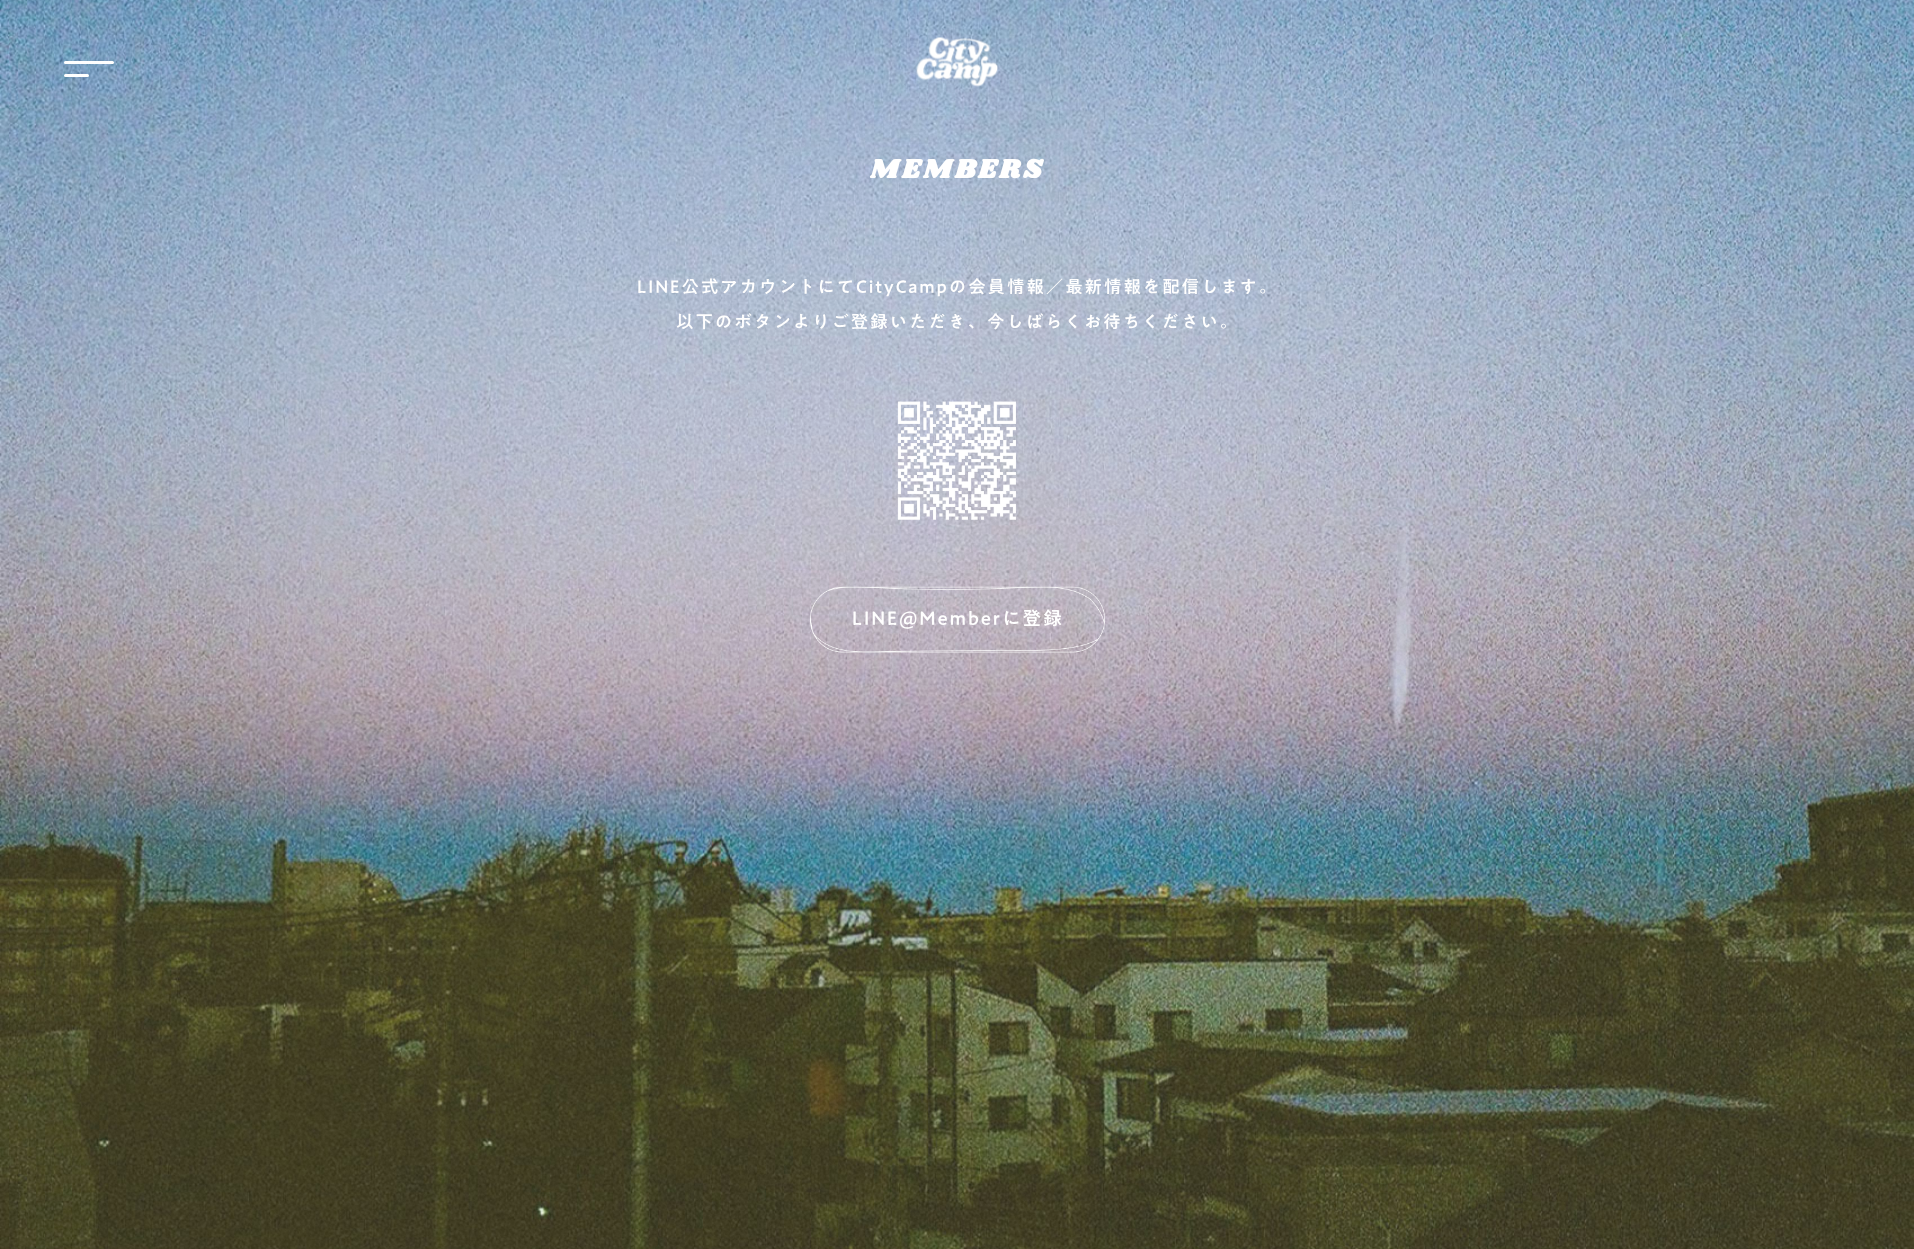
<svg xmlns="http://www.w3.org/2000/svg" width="1914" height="1249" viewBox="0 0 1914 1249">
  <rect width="100%" height="100%" fill="#ffffff"/>
  <image x="0" y="0" width="1914" height="1249" href="img3.png"/>
  <image x="0" y="0" width="1914" height="1249" href="img1.png"/>
  <rect x="64" y="74" width="25" height="3" rx="1.5" fill="#ffffff"/>
  <rect x="64" y="61" width="50" height="3" rx="1.5" fill="#ffffff"/>
  <image x="916" y="37" width="83" height="50" href="img2.png"/>
  <text x="870" y="178" font-family="Shrikhand" font-size="27.5" font-weight="bold" letter-spacing="2.75" fill="#ffffff">MEMBERS</text>
  <text x="637" y="293" font-family="'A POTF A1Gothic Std'" font-size="17.5" font-weight="500" letter-spacing="1.9" fill="#ffffff">LINE公式アカウントにてCityCampの会員情報／最新情報を配信します。</text>
  <text x="676" y="328" font-family="'A POTF A1Gothic Std'" font-size="17.5" font-weight="500" letter-spacing="1.9" fill="#ffffff">以下のボタンよりご登録いただき、今しばらくお待ちください。</text>
  <image x="897" y="401" width="119" height="119" href="img4.png"/>
  <image x="810" y="586" width="295" height="67" href="img5.png"/>
  <text x="852" y="625" font-family="'A POTF A1Gothic Std'" font-size="18.75" font-weight="500" letter-spacing="1.9" fill="#ffffff">LINE@Memberに登録</text>
</svg>
